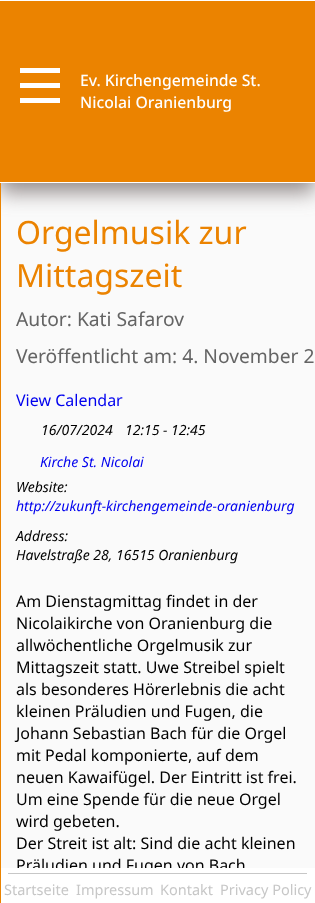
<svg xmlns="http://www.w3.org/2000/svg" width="315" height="903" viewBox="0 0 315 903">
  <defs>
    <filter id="blur1" x="-50%" y="-200%" width="200%" height="500%"><feGaussianBlur stdDeviation="10"/></filter>
  </defs>
  <rect width="100%" height="100%" fill="#fafafa"/>
  <rect x="0" y="10" width="315" height="183" fill="#979090" filter="url(#blur1)"/>
  <rect x="0" y="1" width="315" height="181" fill="#eb8300"/>
  <rect x="0" y="0" width="315" height="1" fill="#ffffff"/>
  <rect x="0" y="182" width="315" height="1" fill="#ffffff"/>
  <rect x="20" y="68" width="40" height="5" fill="#ffffff"/>
  <rect x="20" y="83" width="40" height="5" fill="#ffffff"/>
  <rect x="20" y="98" width="40" height="5" fill="#ffffff"/>
  <rect x="0" y="183" width="1" height="720" fill="#eb8300"/>
  <text x="80" y="86" font-family="Noto Sans" font-size="15.75" font-weight="500" fill="#ffffff">Ev. Kirchengemeinde St.</text>
  <text x="80" y="108" font-family="Noto Sans" font-size="15.75" font-weight="500" fill="#ffffff">Nicolai Oranienburg</text>
  <text x="16" y="244" font-family="Noto Sans" font-size="32" fill="#eb8300">Orgelmusik zur</text>
  <text x="16" y="287" font-family="Noto Sans" font-size="32" fill="#eb8300">Mittagszeit</text>
  <text x="16" y="326" font-family="Noto Sans" font-size="19.25" fill="#646464">Autor: Kati Safarov</text>
  <text x="16" y="363" font-family="Noto Sans" font-size="19.25" fill="#646464">Veröffentlicht am: 4. November 2</text>
  <text x="16" y="406" font-family="Noto Sans" font-size="16" fill="#0000ee">View Calendar</text>
  <text x="41" y="435" font-family="Noto Sans" font-size="14" font-style="italic" fill="#000000">16/07/2024</text>
  <text x="125" y="435" font-family="Noto Sans" font-size="14" font-style="italic" fill="#000000">12:15 - 12:45</text>
  <text x="40" y="467" font-family="Noto Sans" font-size="14" font-style="italic" fill="#0000ee">Kirche St. Nicolai</text>
  <text x="16" y="492" font-family="Noto Sans" font-size="14" font-style="italic" fill="#000000">Website:</text>
  <text x="16" y="511" font-family="Noto Sans" font-size="14" font-style="italic" fill="#0000ee">http://zukunft-kirchengemeinde-oranienburg</text>
  <text x="16" y="541" font-family="Noto Sans" font-size="14" font-style="italic" fill="#000000">Address:</text>
  <text x="16" y="560" font-family="Noto Sans" font-size="14" font-style="italic" fill="#000000">Havelstraße 28, 16515 Oranienburg</text>
  <text x="16" y="607" font-family="Noto Sans" font-size="16" fill="#000000">Am Dienstagmittag findet in der</text>
  <text x="16" y="629" font-family="Noto Sans" font-size="16" fill="#000000">Nicolaikirche von Oranienburg die</text>
  <text x="16" y="651" font-family="Noto Sans" font-size="16" fill="#000000">allwöchentliche Orgelmusik zur</text>
  <text x="16" y="673" font-family="Noto Sans" font-size="16" fill="#000000">Mittagszeit statt. Uwe Streibel spielt</text>
  <text x="16" y="695" font-family="Noto Sans" font-size="16" fill="#000000">als besonderes Hörerlebnis die acht</text>
  <text x="16" y="717" font-family="Noto Sans" font-size="16" fill="#000000">kleinen Präludien und Fugen, die</text>
  <text x="16" y="739" font-family="Noto Sans" font-size="16" fill="#000000">Johann Sebastian Bach für die Orgel</text>
  <text x="16" y="761" font-family="Noto Sans" font-size="16" fill="#000000">mit Pedal komponierte, auf dem</text>
  <text x="16" y="783" font-family="Noto Sans" font-size="16" fill="#000000">neuen Kawaifügel. Der Eintritt ist frei.</text>
  <text x="16" y="805" font-family="Noto Sans" font-size="16" fill="#000000">Um eine Spende für die neue Orgel</text>
  <text x="16" y="827" font-family="Noto Sans" font-size="16" fill="#000000">wird gebeten.</text>
  <text x="16" y="849" font-family="Noto Sans" font-size="16" fill="#000000">Der Streit ist alt: Sind die acht kleinen</text>
  <text x="16" y="871" font-family="Noto Sans" font-size="16" fill="#000000">Präludien und Fugen von Bach</text>
  <rect x="1" y="868" width="314" height="35" fill="#ffffff"/>
  <rect x="8" y="873" width="299" height="1" fill="#c7c7c7"/>
  <text x="4" y="895" font-family="Noto Sans" font-size="14.5" fill="#c7c7c7">Startseite</text>
  <text x="76" y="895" font-family="Noto Sans" font-size="14.5" fill="#c7c7c7">Impressum</text>
  <text x="160" y="895" font-family="Noto Sans" font-size="14.5" fill="#c7c7c7">Kontakt</text>
  <text x="220" y="895" font-family="Noto Sans" font-size="14.5" fill="#c7c7c7">Privacy Policy</text>
</svg>
